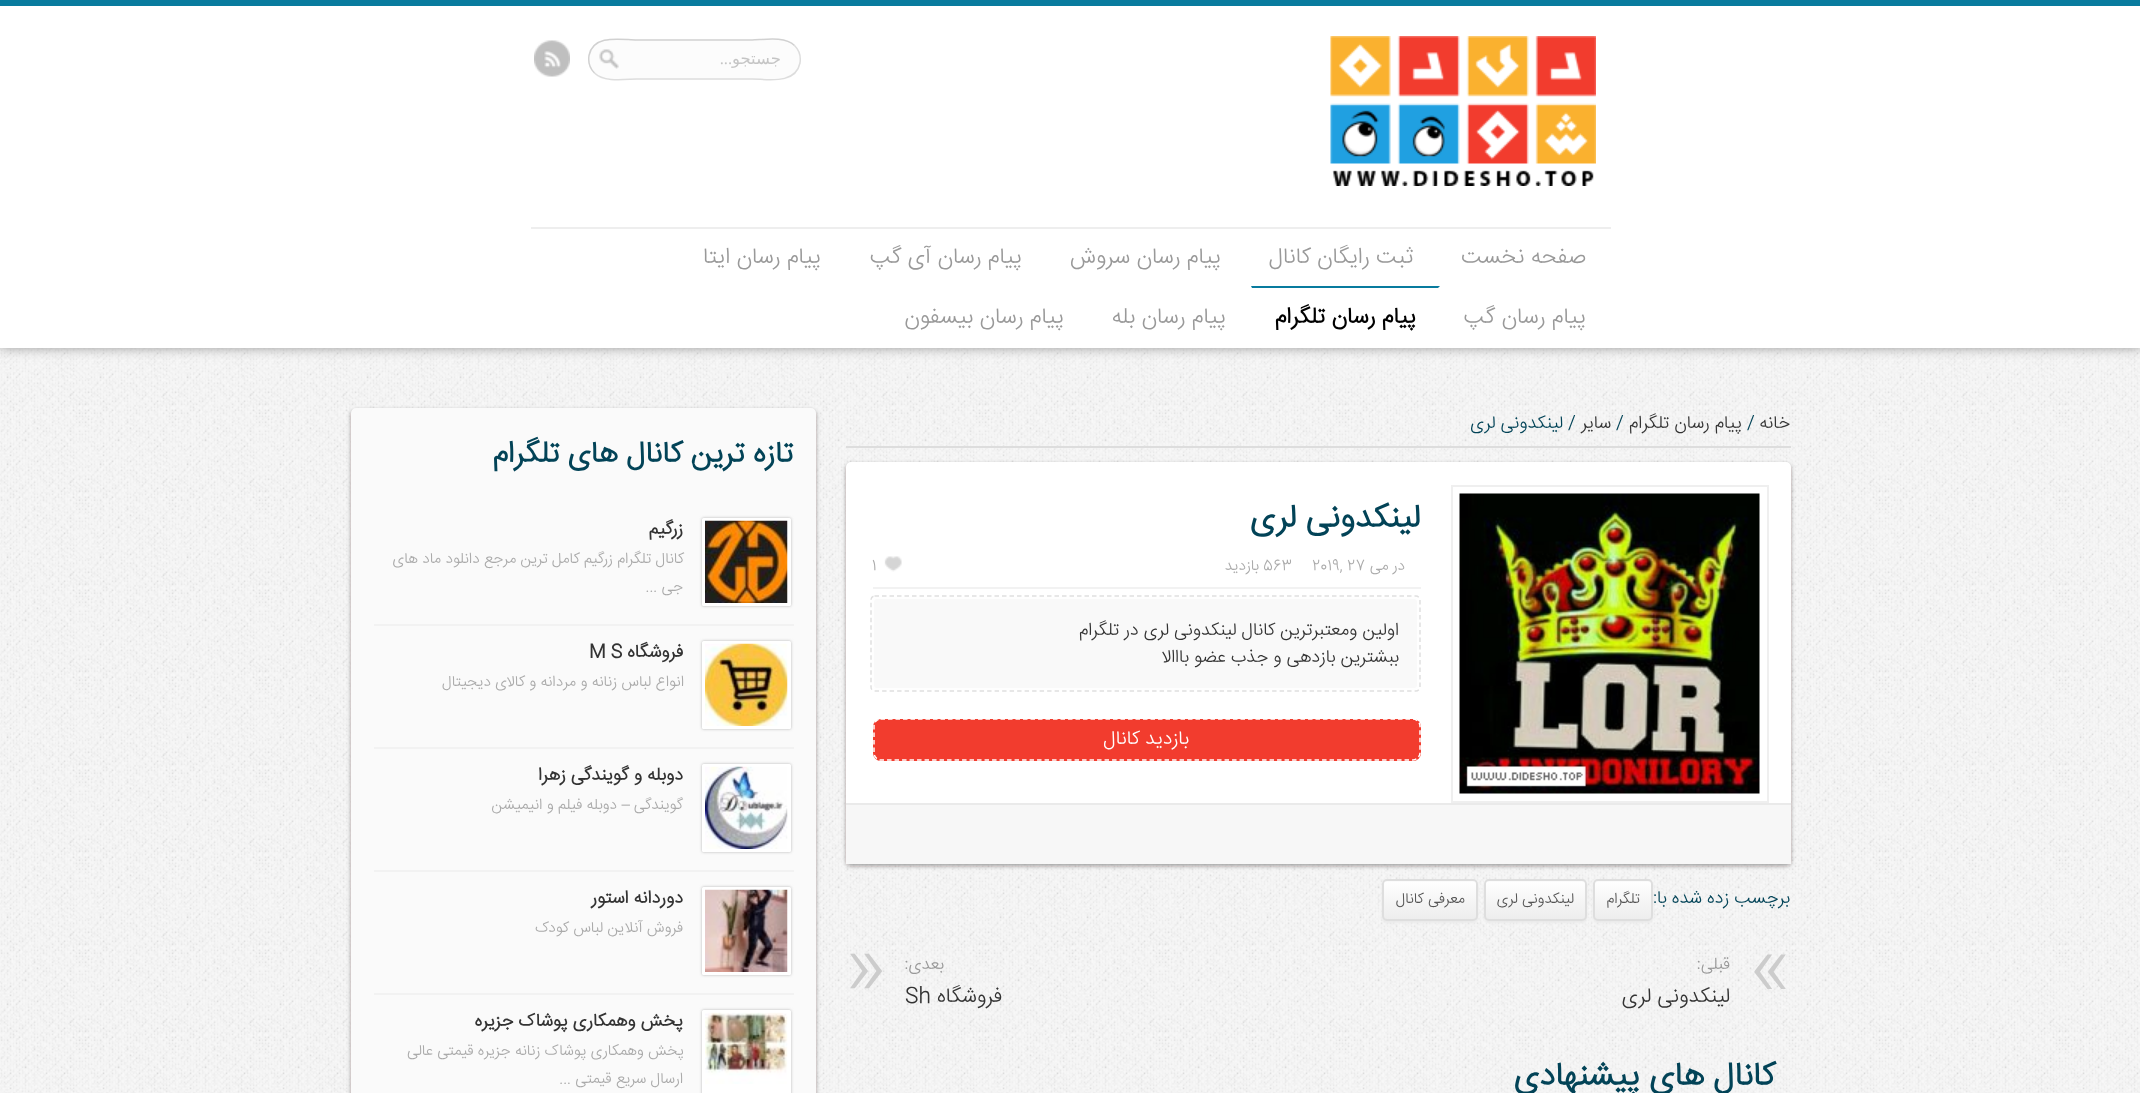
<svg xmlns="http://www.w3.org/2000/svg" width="2140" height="1093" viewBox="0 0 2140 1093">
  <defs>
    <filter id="blur1" x="-50%" y="-200%" width="200%" height="500%"><feGaussianBlur stdDeviation="6"/></filter>
    <filter id="blur2" x="-50%" y="-200%" width="200%" height="500%"><feGaussianBlur stdDeviation="2"/></filter>
    <filter id="blur3" x="-50%" y="-200%" width="200%" height="500%"><feGaussianBlur stdDeviation="1"/></filter>
    <clipPath id="clip1"><rect x="1593" y="879" width="60" height="42" rx="5"/></clipPath>
    <linearGradient id="g1" gradientUnits="userSpaceOnUse" x1="1623" y1="881" x2="1623" y2="920"><stop offset="0" stop-color="#ffffff"/><stop offset="0.47" stop-color="#f6f6f6"/><stop offset="1" stop-color="#ededed"/></linearGradient>
    <clipPath id="clip2"><rect x="1484" y="879" width="103" height="42" rx="5"/></clipPath>
    <linearGradient id="g2" gradientUnits="userSpaceOnUse" x1="1535" y1="881" x2="1535" y2="920"><stop offset="0" stop-color="#ffffff"/><stop offset="0.47" stop-color="#f6f6f6"/><stop offset="1" stop-color="#ededed"/></linearGradient>
    <clipPath id="clip3"><rect x="1382" y="879" width="96" height="42" rx="5"/></clipPath>
    <linearGradient id="g3" gradientUnits="userSpaceOnUse" x1="1430" y1="881" x2="1430" y2="920"><stop offset="0" stop-color="#ffffff"/><stop offset="0.47" stop-color="#f6f6f6"/><stop offset="1" stop-color="#ededed"/></linearGradient>
    <filter id="blur4" x="-50%" y="-200%" width="200%" height="500%"><feGaussianBlur stdDeviation="1.5"/></filter>
  </defs>
  <rect width="100%" height="100%" fill="#ffffff"/>
  <image x="0" y="348" width="2140" height="745" href="img1.png"/>
  <rect x="0" y="0" width="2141" height="348" fill="#999999" filter="url(#blur1)"/>
  <rect x="0" y="6" width="2140" height="342" fill="#ffffff"/>
  <rect x="0" y="0" width="2140" height="6" fill="#087b9e"/>
  <image x="1330" y="36" width="266" height="150" href="img2.png"/>
  <rect x="588" y="39" width="213" height="41" rx="20.5" fill="#fcfcfc"/>
  <path d="M794.5 45.5C799 50 801 56.5 800 63C795.5 85 767 79 752 79H637C627 79 604.5 83 594.5 73" fill="none" stroke="#dddddd" stroke-width="1.5"/>
  <path d="M594.5 73C590 68.5 588 62 589 55.5C593.5 33.5 622 40 637 40H752C762 40 784.5 35.5 794.5 45.5" fill="none" stroke="#d1d1d1" stroke-width="1.5"/>
  <text x="732" y="64" font-family="Liberation Serif" font-size="16.5" direction="rtl" fill="#c5c5c5">...</text>
  <text x="781" y="64" font-family="DejaVu Sans" font-size="16.5" direction="rtl" fill="#c5c5c5">جستجو</text>
  <image x="599" y="49" width="20" height="20" href="img3.png"/>
  <image x="534" y="40" width="36" height="37" href="img4.png"/>
  <rect x="531" y="227" width="1080" height="2" fill="#eeeeee"/>
  <text x="1586" y="263" font-family="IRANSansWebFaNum" font-size="22.5" font-weight="300" direction="rtl" fill="#999999">صفحه نخست</text>
  <text x="1413" y="263" font-family="IRANSansWebFaNum" font-size="22.5" font-weight="300" direction="rtl" fill="#999999">ثبت رایگان کانال</text>
  <text x="1221" y="263" font-family="IRANSansWebFaNum" font-size="22.5" font-weight="300" direction="rtl" fill="#999999">پیام رسان سروش</text>
  <text x="1022" y="263" font-family="IRANSansWebFaNum" font-size="22.5" font-weight="300" direction="rtl" fill="#999999">پیام رسان آی گپ</text>
  <text x="821" y="263" font-family="IRANSansWebFaNum" font-size="22.5" font-weight="300" direction="rtl" fill="#999999">پیام رسان ایتا</text>
  <text x="1586" y="323" font-family="IRANSansWebFaNum" font-size="22.5" font-weight="300" direction="rtl" fill="#999999">پیام رسان گپ</text>
  <path d="M1251 286H1440L1438 288H1252Z" fill="#087b9e"/>
  <text x="1416" y="323" font-family="IRANSansWebFaNum" font-size="22.5" font-weight="bold" direction="rtl" fill="#000000">پیام رسان تلگرام</text>
  <text x="1226" y="323" font-family="IRANSansWebFaNum" font-size="22.5" font-weight="300" direction="rtl" fill="#999999">پیام رسان بله</text>
  <text x="1064" y="323" font-family="IRANSansWebFaNum" font-size="22.5" font-weight="300" direction="rtl" fill="#999999">پیام رسان بیسفون</text>
  <rect x="846" y="446" width="945" height="2" fill="#dddddd"/>
  <text x="1790" y="428" font-family="IRANSansWebFaNum" font-size="18" font-weight="300" direction="rtl" fill="#333333">خانه</text>
  <text x="1747" y="428" font-family="IRANSansWebFaNum" font-size="18" font-weight="300" fill="#024357">/</text>
  <text x="1742" y="428" font-family="IRANSansWebFaNum" font-size="18" font-weight="300" direction="rtl" fill="#333333">پیام رسان تلگرام</text>
  <text x="1616" y="428" font-family="IRANSansWebFaNum" font-size="18" font-weight="300" fill="#024357">/</text>
  <text x="1611" y="428" font-family="IRANSansWebFaNum" font-size="18" font-weight="300" direction="rtl" fill="#333333">سایر</text>
  <text x="1568" y="428" font-family="IRANSansWebFaNum" font-size="18" font-weight="300" fill="#024357">/</text>
  <text x="1563" y="428" font-family="IRANSansWebFaNum" font-size="18" font-weight="300" direction="rtl" fill="#024357">لینکدونی لری</text>
  <rect x="846" y="464" width="945" height="402" rx="5" fill="#221919" fill-opacity="0.4" filter="url(#blur2)"/>
  <rect x="846" y="462" width="945" height="402" rx="5" fill="#ffffff"/>
  <rect x="1452" y="486" width="316" height="316" fill="none" stroke="#efefef" stroke-width="2"/>
  <image x="1459" y="493" width="301" height="301" href="img5.png"/>
  <text x="1420" y="527" font-family="IRANSansWebFaNum" font-size="33" font-weight="bold" direction="rtl" fill="#024357">لینکدونی لری</text>
  <rect x="873" y="587" width="548" height="2" fill="#f2f2f2"/>
  <text x="1405" y="570" font-family="IRANSansWebFaNum" font-size="15.25" font-weight="300" direction="rtl" fill="#aaaaaa">در می</text>
  <text x="1312" y="570" font-family="IRANSansWebFaNum" font-size="15.25" font-weight="300" fill="#aaaaaa">2019, 27</text>
  <text x="1263" y="570" font-family="IRANSansWebFaNum" font-size="15.25" font-weight="300" fill="#aaaaaa">563</text>
  <text x="1259" y="570" font-family="IRANSansWebFaNum" font-size="15.25" font-weight="300" direction="rtl" fill="#aaaaaa">بازدید</text>
  <image x="884" y="556" width="18" height="16" href="img6.png"/>
  <text x="872" y="570" font-family="IRANSansWebFaNum" font-size="15.25" font-weight="300" fill="#aaaaaa">1</text>
  <path d="M874.5 596H1416C1418 596 1420 598 1420 600V687C1420 689 1418 691 1416 691H874.5C872.5 691 871 689 871 687V600C871 598 872.5 596 874.5 596Z" fill="none" stroke="#e0e0e0" stroke-width="1.5" stroke-dasharray="4.5 3"/>
  <rect x="873" y="598" width="545" height="91" rx="4" fill="#f9f9f9" stroke="#fefefe" stroke-width="2"/>
  <text x="1399" y="635" font-family="IRANSansWebFaNum" font-size="18" font-weight="300" direction="rtl" fill="#333333">اولین ومعتبرترین کانال لینکدونی لری در تلگرام</text>
  <text x="1399" y="662" font-family="IRANSansWebFaNum" font-size="18" font-weight="300" direction="rtl" fill="#333333">ببشترین بازدهی و جذب عضو بااالا</text>
  <rect x="873" y="719" width="548" height="42" rx="8" fill="#f23c2e"/>
  <path d="M880.5 719H1413C1416.5 719 1420 722.5 1420 726V753C1420 756.5 1416.5 760 1413 760H880.5C877 760 874 756.5 874 753V726C874 722.5 877 719 880.5 719Z" fill="none" stroke="#ffffff" stroke-width="1.5" stroke-dasharray="4.5 3"/>
  <text x="1189" y="744" font-family="IRANSansWebFaNum" font-size="19.5" font-weight="300" direction="rtl" fill="#ffffff">بازدید کانال</text>
  <rect x="846" y="805" width="945" height="59" fill="#f7f7f7"/>
  <rect x="846" y="803" width="945" height="2" fill="#eaeaea"/>
  <text x="1790" y="903" font-family="IRANSansWebFaNum" font-size="18" font-weight="300" direction="rtl" fill="#024357">برچسب زده شده با:</text>
  <rect x="1593" y="881" width="60" height="42" rx="5" fill="#eaeaea" filter="url(#blur3)"/>
  <g clip-path="url(#clip1)">
    <rect x="1593" y="881" width="60" height="39" fill="url(#g1)"/>
  </g>
  <path d="M1598 882H1648C1650 882 1652 883 1652 885V884C1652 882 1651 881 1649 881H1598C1597 881 1596 882 1595 883Z" fill="#fbfbfb"/>
  <rect x="1594" y="880" width="58" height="40" rx="4" fill="none" stroke="#dedede" stroke-width="2"/>
  <text x="1640" y="903" font-family="IRANSansWebFaNum" font-size="15" font-weight="300" direction="rtl" fill="#555555">تلگرام</text>
  <rect x="1484" y="881" width="103" height="42" rx="5" fill="#eaeaea" filter="url(#blur3)"/>
  <g clip-path="url(#clip2)">
    <rect x="1484" y="881" width="103" height="39" fill="url(#g2)"/>
  </g>
  <path d="M1488 882H1582C1584 882 1586 883 1586 885C1586 877 1570 881 1567 881H1504C1501 881 1485 877 1485 885C1485 883 1486 882 1488 882Z" fill="#fbfbfb"/>
  <rect x="1485" y="880" width="101" height="40" rx="4" fill="none" stroke="#dedede" stroke-width="2"/>
  <text x="1574" y="903" font-family="IRANSansWebFaNum" font-size="15" font-weight="300" direction="rtl" fill="#555555">لینکدونی لری</text>
  <rect x="1382" y="881" width="96" height="42" rx="5" fill="#eaeaea" filter="url(#blur3)"/>
  <g clip-path="url(#clip3)">
    <rect x="1382" y="881" width="96" height="39" fill="url(#g3)"/>
  </g>
  <path d="M1386 882H1473C1475 882 1476 883 1476 885C1476 877 1462 881 1458 881H1400C1397 881 1383 877 1383 885C1383 883 1384 882 1386 882Z" fill="#fbfbfb"/>
  <rect x="1383" y="880" width="94" height="40" rx="4" fill="none" stroke="#dedede" stroke-width="2"/>
  <text x="1465" y="903" font-family="IRANSansWebFaNum" font-size="15" font-weight="300" direction="rtl" fill="#555555">معرفی کانال</text>
  <text x="1749" y="991" font-family="IRANSansWebFaNum" font-size="84" font-weight="300" fill="#cccccc">«</text>
  <text x="1730" y="969" font-family="IRANSansWebFaNum" font-size="17" font-weight="300" direction="rtl" fill="#999999">قبلی:</text>
  <text x="1730" y="1002" font-family="IRANSansWebFaNum" font-size="21" font-weight="300" direction="rtl" fill="#333333">لینکدونی لری</text>
  <text x="944" y="969" font-family="IRANSansWebFaNum" font-size="17" font-weight="300" direction="rtl" fill="#999999">بعدی:</text>
  <text x="845" y="991" font-family="IRANSansWebFaNum" font-size="84" font-weight="300" fill="#cccccc">»</text>
  <text x="1002" y="1002" font-family="IRANSansWebFaNum" font-size="21" font-weight="300" direction="rtl" fill="#333333">فروشگاه</text>
  <text x="905" y="1002" font-family="IRANSansWebFaNum" font-size="21" font-weight="300" fill="#333333">Sh</text>
  <text x="1775" y="1085" font-family="IRANSansWebFaNum" font-size="33" font-weight="bold" direction="rtl" fill="#024357">کانال های پیشنهادی</text>
  <rect x="351" y="410" width="465" height="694" rx="5" fill="#221919" fill-opacity="0.4" filter="url(#blur2)"/>
  <rect x="351" y="408" width="465" height="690" rx="5" fill="#fafafa"/>
  <text x="793" y="462" font-family="IRANSansWebFaNum" font-size="30" font-weight="bold" direction="rtl" fill="#024357">تازه ترین کانال های تلگرام</text>
  <rect x="374" y="624" width="420" height="2" fill="#f2f2f2"/>
  <rect x="702" y="518" width="89" height="88" rx="1.5" fill="#b5b5b5" filter="url(#blur4)"/>
  <rect x="702" y="518" width="89" height="88" rx="1.5" fill="#ffffff"/>
  <image x="705" y="520" width="83" height="83" href="img7.png"/>
  <text x="683" y="534" font-family="IRANSansWebFaNum" font-size="18" font-weight="bold" direction="rtl" fill="#333333">زرگیم</text>
  <text x="684" y="563" font-family="IRANSansWebFaNum" font-size="15.25" font-weight="300" direction="rtl" fill="#aaaaaa">کانال تلگرام زرگیم کامل ترین مرجع دانلود ماد های</text>
  <text x="683" y="591" font-family="IRANSansWebFaNum" font-size="15.25" font-weight="300" direction="rtl" fill="#aaaaaa">جی ...</text>
  <rect x="374" y="747" width="420" height="2" fill="#f2f2f2"/>
  <rect x="702" y="641" width="89" height="88" rx="1.5" fill="#b5b5b5" filter="url(#blur4)"/>
  <rect x="702" y="641" width="89" height="88" rx="1.5" fill="#ffffff"/>
  <image x="705" y="643" width="83" height="83" href="img8.png"/>
  <text x="683" y="657" font-family="IRANSansWebFaNum" font-size="18" font-weight="bold" direction="rtl" fill="#333333">فروشگاه</text>
  <text x="589" y="657" font-family="IRANSansWebFaNum" font-size="18" font-weight="bold" fill="#333333">M S</text>
  <text x="684" y="686" font-family="IRANSansWebFaNum" font-size="15.25" font-weight="300" direction="rtl" fill="#aaaaaa">انواع لباس زنانه و مردانه و کالای دیجیتال</text>
  <rect x="374" y="870" width="420" height="2" fill="#f2f2f2"/>
  <rect x="702" y="764" width="89" height="88" rx="1.5" fill="#b5b5b5" filter="url(#blur4)"/>
  <rect x="702" y="764" width="89" height="88" rx="1.5" fill="#ffffff"/>
  <image x="705" y="766" width="83" height="83" href="img9.png"/>
  <text x="683" y="780" font-family="IRANSansWebFaNum" font-size="18" font-weight="bold" direction="rtl" fill="#333333">دوبله و گویندگی زهرا</text>
  <text x="683" y="809" font-family="IRANSansWebFaNum" font-size="15.25" font-weight="300" direction="rtl" fill="#aaaaaa">گویندگی</text>
  <text x="630" y="809" font-family="Liberation Sans" font-size="15.25" direction="rtl" fill="#aaaaaa">–</text>
  <text x="617" y="809" font-family="IRANSansWebFaNum" font-size="15.25" font-weight="300" direction="rtl" fill="#aaaaaa">دوبله فیلم و انیمیشن</text>
  <rect x="374" y="993" width="420" height="2" fill="#f2f2f2"/>
  <rect x="702" y="887" width="89" height="88" rx="1.5" fill="#b5b5b5" filter="url(#blur4)"/>
  <rect x="702" y="887" width="89" height="88" rx="1.5" fill="#ffffff"/>
  <image x="705" y="889" width="83" height="83" href="img10.png"/>
  <text x="683" y="903" font-family="IRANSansWebFaNum" font-size="18" font-weight="bold" direction="rtl" fill="#333333">دوردانه استور</text>
  <text x="683" y="932" font-family="IRANSansWebFaNum" font-size="15.25" font-weight="300" direction="rtl" fill="#aaaaaa">فروش آنلاین لباس کودک</text>
  <rect x="702" y="1010" width="89" height="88" rx="1.5" fill="#b5b5b5" filter="url(#blur4)"/>
  <rect x="702" y="1010" width="89" height="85" rx="1.5" fill="#ffffff"/>
  <image x="705" y="1012" width="83" height="72" href="img11.png"/>
  <text x="683" y="1026" font-family="IRANSansWebFaNum" font-size="18" font-weight="bold" direction="rtl" fill="#333333">پخش وهمکاری پوشاک جزیره</text>
  <text x="684" y="1055" font-family="IRANSansWebFaNum" font-size="15.25" font-weight="300" direction="rtl" fill="#aaaaaa">پخش وهمکاری پوشاک زنانه جزیره قیمتی عالی</text>
  <text x="683" y="1083" font-family="IRANSansWebFaNum" font-size="15.25" font-weight="300" direction="rtl" fill="#aaaaaa">ارسال سریع قیمتی ...</text>
</svg>
